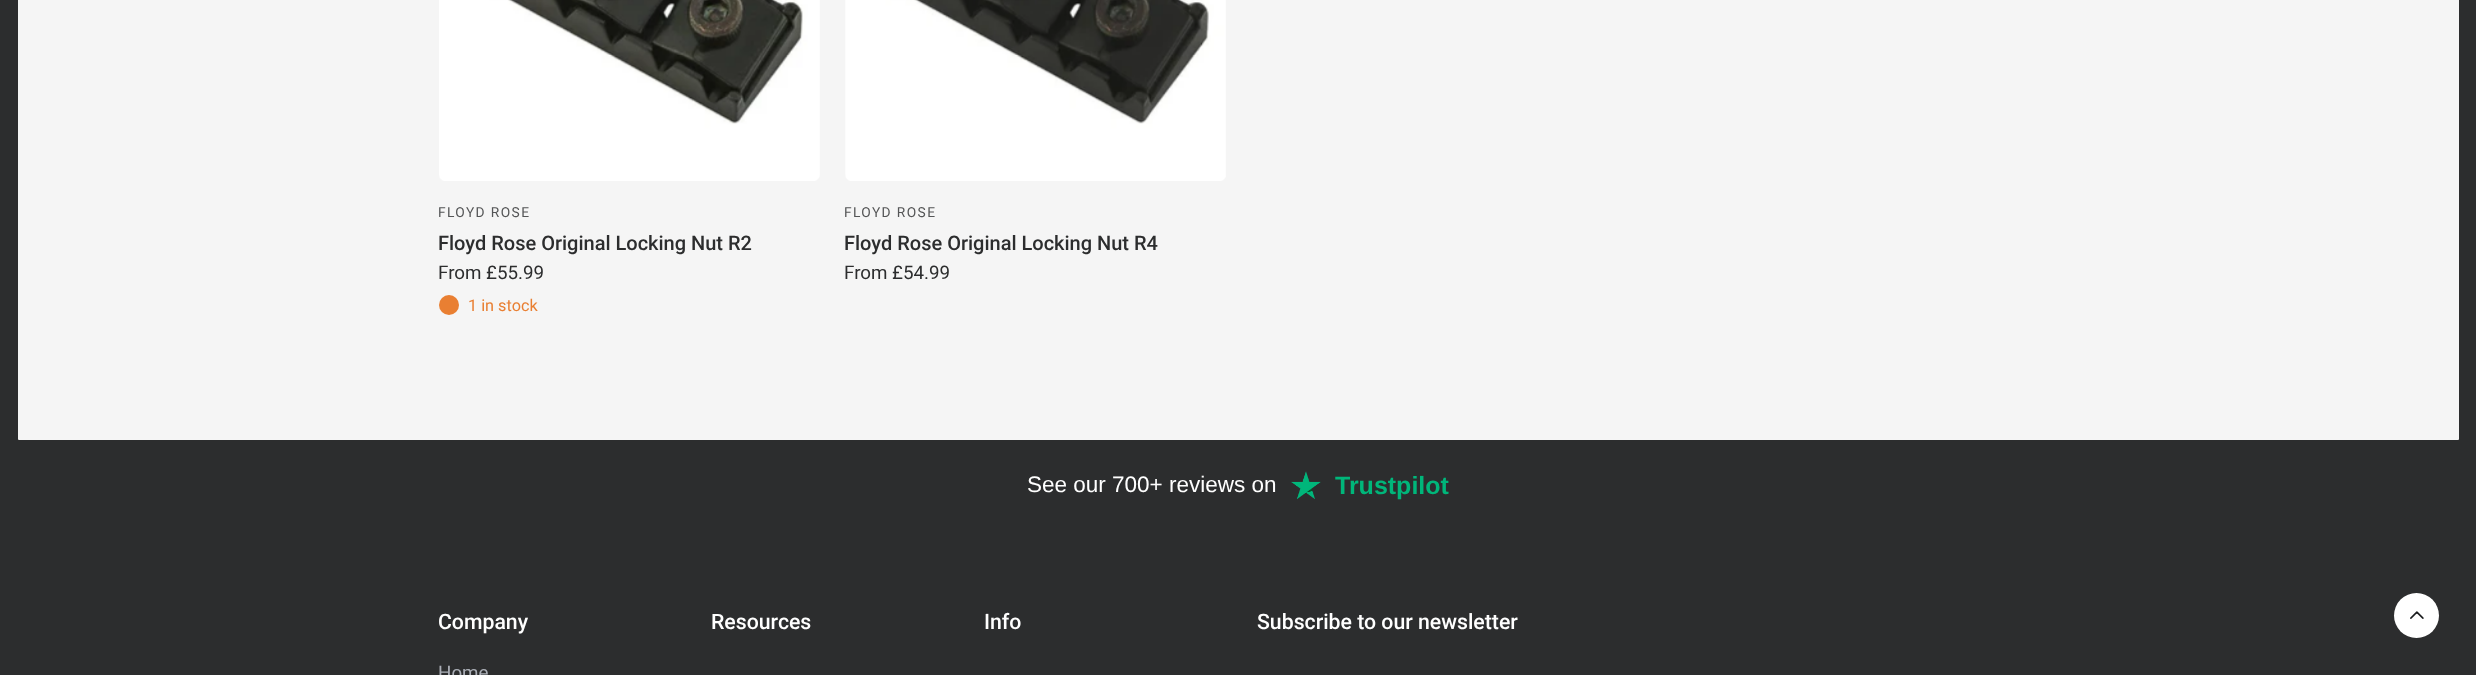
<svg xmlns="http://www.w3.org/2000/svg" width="2476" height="675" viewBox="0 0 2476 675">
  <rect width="100%" height="100%" fill="#2c2d2e"/>
  <rect x="18" y="-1" width="2441" height="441" rx="1" fill="#f5f5f5"/>
  <image x="439" y="0" width="381" height="181" href="img1.png"/>
  <text x="438" y="217" font-family="Roboto" font-size="13.75" letter-spacing="1.4" fill="#545556">FLOYD ROSE</text>
  <text x="438" y="250" font-family="Roboto" font-size="20" font-weight="500" fill="#2c2d2e">Floyd Rose Original Locking Nut R2</text>
  <text x="438" y="279" font-family="Roboto" font-size="18.75" fill="#2c2d2e">From £55.99</text>
  <circle cx="449" cy="305" r="10" fill="#e97f32"/>
  <text x="468" y="311" font-family="Roboto" font-size="16.25" fill="#e97f32">1 in stock</text>
  <image x="845" y="0" width="381" height="181" href="img2.png"/>
  <text x="844" y="217" font-family="Roboto" font-size="13.75" letter-spacing="1.4" fill="#545556">FLOYD ROSE</text>
  <text x="844" y="250" font-family="Roboto" font-size="20" font-weight="500" fill="#2c2d2e">Floyd Rose Original Locking Nut R4</text>
  <text x="844" y="279" font-family="Roboto" font-size="18.75" fill="#2c2d2e">From £54.99</text>
  <text x="1027" y="492" font-family="Liberation Sans" font-size="22.5" fill="#ffffff">See our 700+ reviews on</text>
  <image x="1291" y="471" width="30" height="28" href="img3.png"/>
  <text x="1335" y="494" font-family="Liberation Sans" font-size="25" font-weight="bold" fill="#00b67a">Trustpilot</text>
  <text x="438" y="629" font-family="Roboto" font-size="21.25" font-weight="500" fill="#ffffff">Company</text>
  <text x="438" y="679" font-family="Roboto" font-size="18.75" fill="#aaaeb6">Home</text>
  <text x="711" y="629" font-family="Roboto" font-size="21.25" font-weight="500" fill="#ffffff">Resources</text>
  <text x="984" y="629" font-family="Roboto" font-size="21.25" font-weight="500" fill="#ffffff">Info</text>
  <text x="1257" y="629" font-family="Roboto" font-size="21.25" font-weight="500" fill="#ffffff">Subscribe to our newsletter</text>
  <circle cx="2416.5" cy="615.5" r="22.5" fill="#ffffff"/>
  <image x="2410" y="611" width="14" height="8" href="img4.png"/>
</svg>
